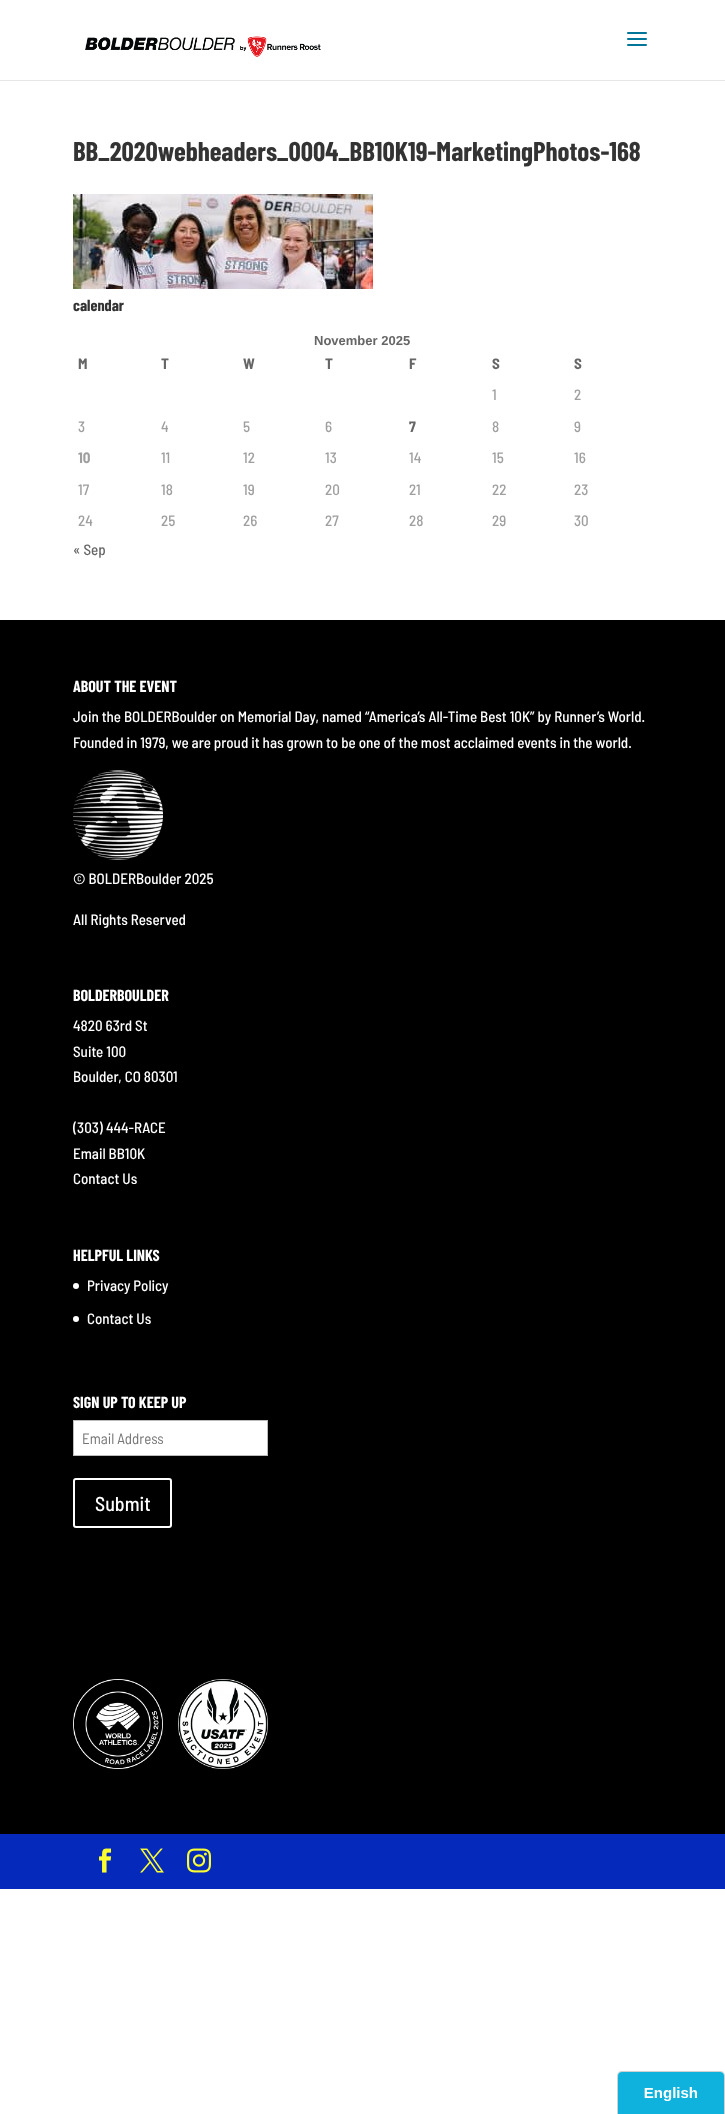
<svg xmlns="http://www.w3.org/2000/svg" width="725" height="2114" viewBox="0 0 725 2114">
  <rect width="100%" height="100%" fill="#ffffff"/>
  <rect x="0" y="80" width="725" height="1" fill="#e6e6e6"/>
  <image x="85" y="36" width="236" height="21" href="img1.png"/>
  <image x="627" y="32" width="20" height="14" href="img2.png"/>
  <text x="73" y="161" font-family="Barlow Condensed" font-size="27" font-weight="bold" fill="#333333">BB_2020webheaders_0004_BB10K19-MarketingPhotos-168</text>
  <image x="73" y="194" width="300" height="95" href="img3.png"/>
  <text x="73" y="311" font-family="Barlow Condensed" font-size="16" font-weight="bold" fill="#333333">calendar</text>
  <text x="314" y="345" font-family="Liberation Sans" font-size="13" font-weight="bold" fill="#666666">November 2025</text>
  <text x="78" y="369" font-family="Barlow Semi Condensed" font-size="15" font-weight="bold" fill="#666666">M</text>
  <text x="161" y="369" font-family="Barlow Semi Condensed" font-size="15" font-weight="bold" fill="#666666">T</text>
  <text x="243" y="369" font-family="Barlow Semi Condensed" font-size="15" font-weight="bold" fill="#666666">W</text>
  <text x="325" y="369" font-family="Barlow Semi Condensed" font-size="15" font-weight="bold" fill="#666666">T</text>
  <text x="409" y="369" font-family="Barlow Semi Condensed" font-size="15" font-weight="bold" fill="#666666">F</text>
  <text x="492" y="369" font-family="Barlow Semi Condensed" font-size="15" font-weight="bold" fill="#666666">S</text>
  <text x="574" y="369" font-family="Barlow Semi Condensed" font-size="15" font-weight="bold" fill="#666666">S</text>
  <text x="492" y="400" font-family="Barlow Semi Condensed" font-size="15" font-weight="500" fill="#9f9f9f">1</text>
  <text x="574" y="400" font-family="Barlow Semi Condensed" font-size="15" font-weight="500" fill="#9f9f9f">2</text>
  <text x="78" y="432" font-family="Barlow Semi Condensed" font-size="15" font-weight="500" fill="#9f9f9f">3</text>
  <text x="161" y="432" font-family="Barlow Semi Condensed" font-size="15" font-weight="500" fill="#9f9f9f">4</text>
  <text x="243" y="432" font-family="Barlow Semi Condensed" font-size="15" font-weight="500" fill="#9f9f9f">5</text>
  <text x="325" y="432" font-family="Barlow Semi Condensed" font-size="15" font-weight="500" fill="#9f9f9f">6</text>
  <text x="409" y="432" font-family="Barlow Semi Condensed" font-size="15" font-weight="bold" fill="#666666">7</text>
  <text x="492" y="432" font-family="Barlow Semi Condensed" font-size="15" font-weight="500" fill="#9f9f9f">8</text>
  <text x="574" y="432" font-family="Barlow Semi Condensed" font-size="15" font-weight="500" fill="#9f9f9f">9</text>
  <text x="78" y="463" font-family="Barlow Semi Condensed" font-size="15" font-weight="bold" fill="#9f9f9f">10</text>
  <text x="161" y="463" font-family="Barlow Semi Condensed" font-size="15" font-weight="500" fill="#9f9f9f">11</text>
  <text x="243" y="463" font-family="Barlow Semi Condensed" font-size="15" font-weight="500" fill="#9f9f9f">12</text>
  <text x="325" y="463" font-family="Barlow Semi Condensed" font-size="15" font-weight="500" fill="#9f9f9f">13</text>
  <text x="409" y="463" font-family="Barlow Semi Condensed" font-size="15" font-weight="500" fill="#9f9f9f">14</text>
  <text x="492" y="463" font-family="Barlow Semi Condensed" font-size="15" font-weight="500" fill="#9f9f9f">15</text>
  <text x="574" y="463" font-family="Barlow Semi Condensed" font-size="15" font-weight="500" fill="#9f9f9f">16</text>
  <text x="78" y="495" font-family="Barlow Semi Condensed" font-size="15" font-weight="500" fill="#9f9f9f">17</text>
  <text x="161" y="495" font-family="Barlow Semi Condensed" font-size="15" font-weight="500" fill="#9f9f9f">18</text>
  <text x="243" y="495" font-family="Barlow Semi Condensed" font-size="15" font-weight="500" fill="#9f9f9f">19</text>
  <text x="325" y="495" font-family="Barlow Semi Condensed" font-size="15" font-weight="500" fill="#9f9f9f">20</text>
  <text x="409" y="495" font-family="Barlow Semi Condensed" font-size="15" font-weight="500" fill="#9f9f9f">21</text>
  <text x="492" y="495" font-family="Barlow Semi Condensed" font-size="15" font-weight="500" fill="#9f9f9f">22</text>
  <text x="574" y="495" font-family="Barlow Semi Condensed" font-size="15" font-weight="500" fill="#9f9f9f">23</text>
  <text x="78" y="526" font-family="Barlow Semi Condensed" font-size="15" font-weight="500" fill="#9f9f9f">24</text>
  <text x="161" y="526" font-family="Barlow Semi Condensed" font-size="15" font-weight="500" fill="#9f9f9f">25</text>
  <text x="243" y="526" font-family="Barlow Semi Condensed" font-size="15" font-weight="500" fill="#9f9f9f">26</text>
  <text x="325" y="526" font-family="Barlow Semi Condensed" font-size="15" font-weight="500" fill="#9f9f9f">27</text>
  <text x="409" y="526" font-family="Barlow Semi Condensed" font-size="15" font-weight="500" fill="#9f9f9f">28</text>
  <text x="492" y="526" font-family="Barlow Semi Condensed" font-size="15" font-weight="500" fill="#9f9f9f">29</text>
  <text x="574" y="526" font-family="Barlow Semi Condensed" font-size="15" font-weight="500" fill="#9f9f9f">30</text>
  <text x="73" y="555" font-family="Barlow Semi Condensed" font-size="15" font-weight="500" fill="#666666">« Sep</text>
  <rect x="0" y="620" width="725" height="1214" fill="#000000"/>
  <text x="73" y="692" font-family="Barlow Condensed" font-size="16" font-weight="bold" fill="#ffffff">ABOUT THE EVENT</text>
  <text x="73" y="722" font-family="Barlow Semi Condensed" font-size="15" font-weight="500" fill="#ffffff">Join the BOLDERBoulder on Memorial Day, named “America’s All-Time Best 10K” by Runner’s World.</text>
  <text x="73" y="748" font-family="Barlow Semi Condensed" font-size="15" font-weight="500" fill="#ffffff">Founded in 1979, we are proud it has grown to be one of the most acclaimed events in the world.</text>
  <image x="73" y="770" width="90" height="90" href="img4.png"/>
  <text x="73" y="884" font-family="Barlow Semi Condensed" font-size="15" font-weight="500" fill="#ffffff">© BOLDERBoulder 2025</text>
  <text x="73" y="925" font-family="Barlow Semi Condensed" font-size="15" font-weight="500" fill="#ffffff">All Rights Reserved</text>
  <text x="73" y="1001" font-family="Barlow Condensed" font-size="16" font-weight="bold" fill="#ffffff">BOLDERBOULDER</text>
  <text x="73" y="1031" font-family="Barlow Semi Condensed" font-size="15" font-weight="500" fill="#ffffff">4820 63rd St</text>
  <text x="73" y="1057" font-family="Barlow Semi Condensed" font-size="15" font-weight="500" fill="#ffffff">Suite 100</text>
  <text x="73" y="1082" font-family="Barlow Semi Condensed" font-size="15" font-weight="500" fill="#ffffff">Boulder, CO 80301</text>
  <text x="73" y="1133" font-family="Barlow Semi Condensed" font-size="15" font-weight="500" fill="#ffffff">(303) 444-RACE</text>
  <text x="73" y="1159" font-family="Barlow Semi Condensed" font-size="15" font-weight="500" fill="#ffffff">Email BB10K</text>
  <text x="73" y="1184" font-family="Barlow Semi Condensed" font-size="15" font-weight="500" fill="#ffffff">Contact Us</text>
  <text x="73" y="1261" font-family="Barlow Condensed" font-size="16" font-weight="bold" fill="#ffffff">HELPFUL LINKS</text>
  <circle cx="76" cy="1286" r="3" fill="#ffffff"/>
  <text x="87" y="1291" font-family="Barlow Semi Condensed" font-size="15" font-weight="500" fill="#ffffff">Privacy Policy</text>
  <circle cx="76" cy="1319" r="3" fill="#ffffff"/>
  <text x="87" y="1324" font-family="Barlow Semi Condensed" font-size="15" font-weight="500" fill="#ffffff">Contact Us</text>
  <text x="73" y="1408" font-family="Barlow Condensed" font-size="16" font-weight="bold" fill="#ffffff">SIGN UP TO KEEP UP</text>
  <rect x="73.5" y="1420.5" width="194" height="35" fill="#ffffff" stroke="#bbbbbb"/>
  <text x="82" y="1444" font-family="Barlow Semi Condensed" font-size="15" fill="#757575">Email Address</text>
  <rect x="74" y="1479" width="97" height="48" rx="2" fill="none" stroke="#ffffff" stroke-width="2"/>
  <text x="95" y="1511" font-family="Barlow Semi Condensed" font-size="20" font-weight="500" fill="#ffffff">Submit</text>
  <image x="73" y="1679" width="90" height="90" href="img5.png"/>
  <image x="178" y="1679" width="90" height="90" href="img6.png"/>
  <rect x="0" y="1834" width="725" height="55" fill="#0529ba"/>
  <image x="99" y="1848" width="13" height="25" href="img7.png"/>
  <image x="140" y="1848" width="24" height="25" href="img8.png"/>
  <image x="187" y="1848" width="24" height="25" href="img9.png"/>
  <image x="617" y="2071" width="108" height="43" href="img10.png"/>
</svg>
